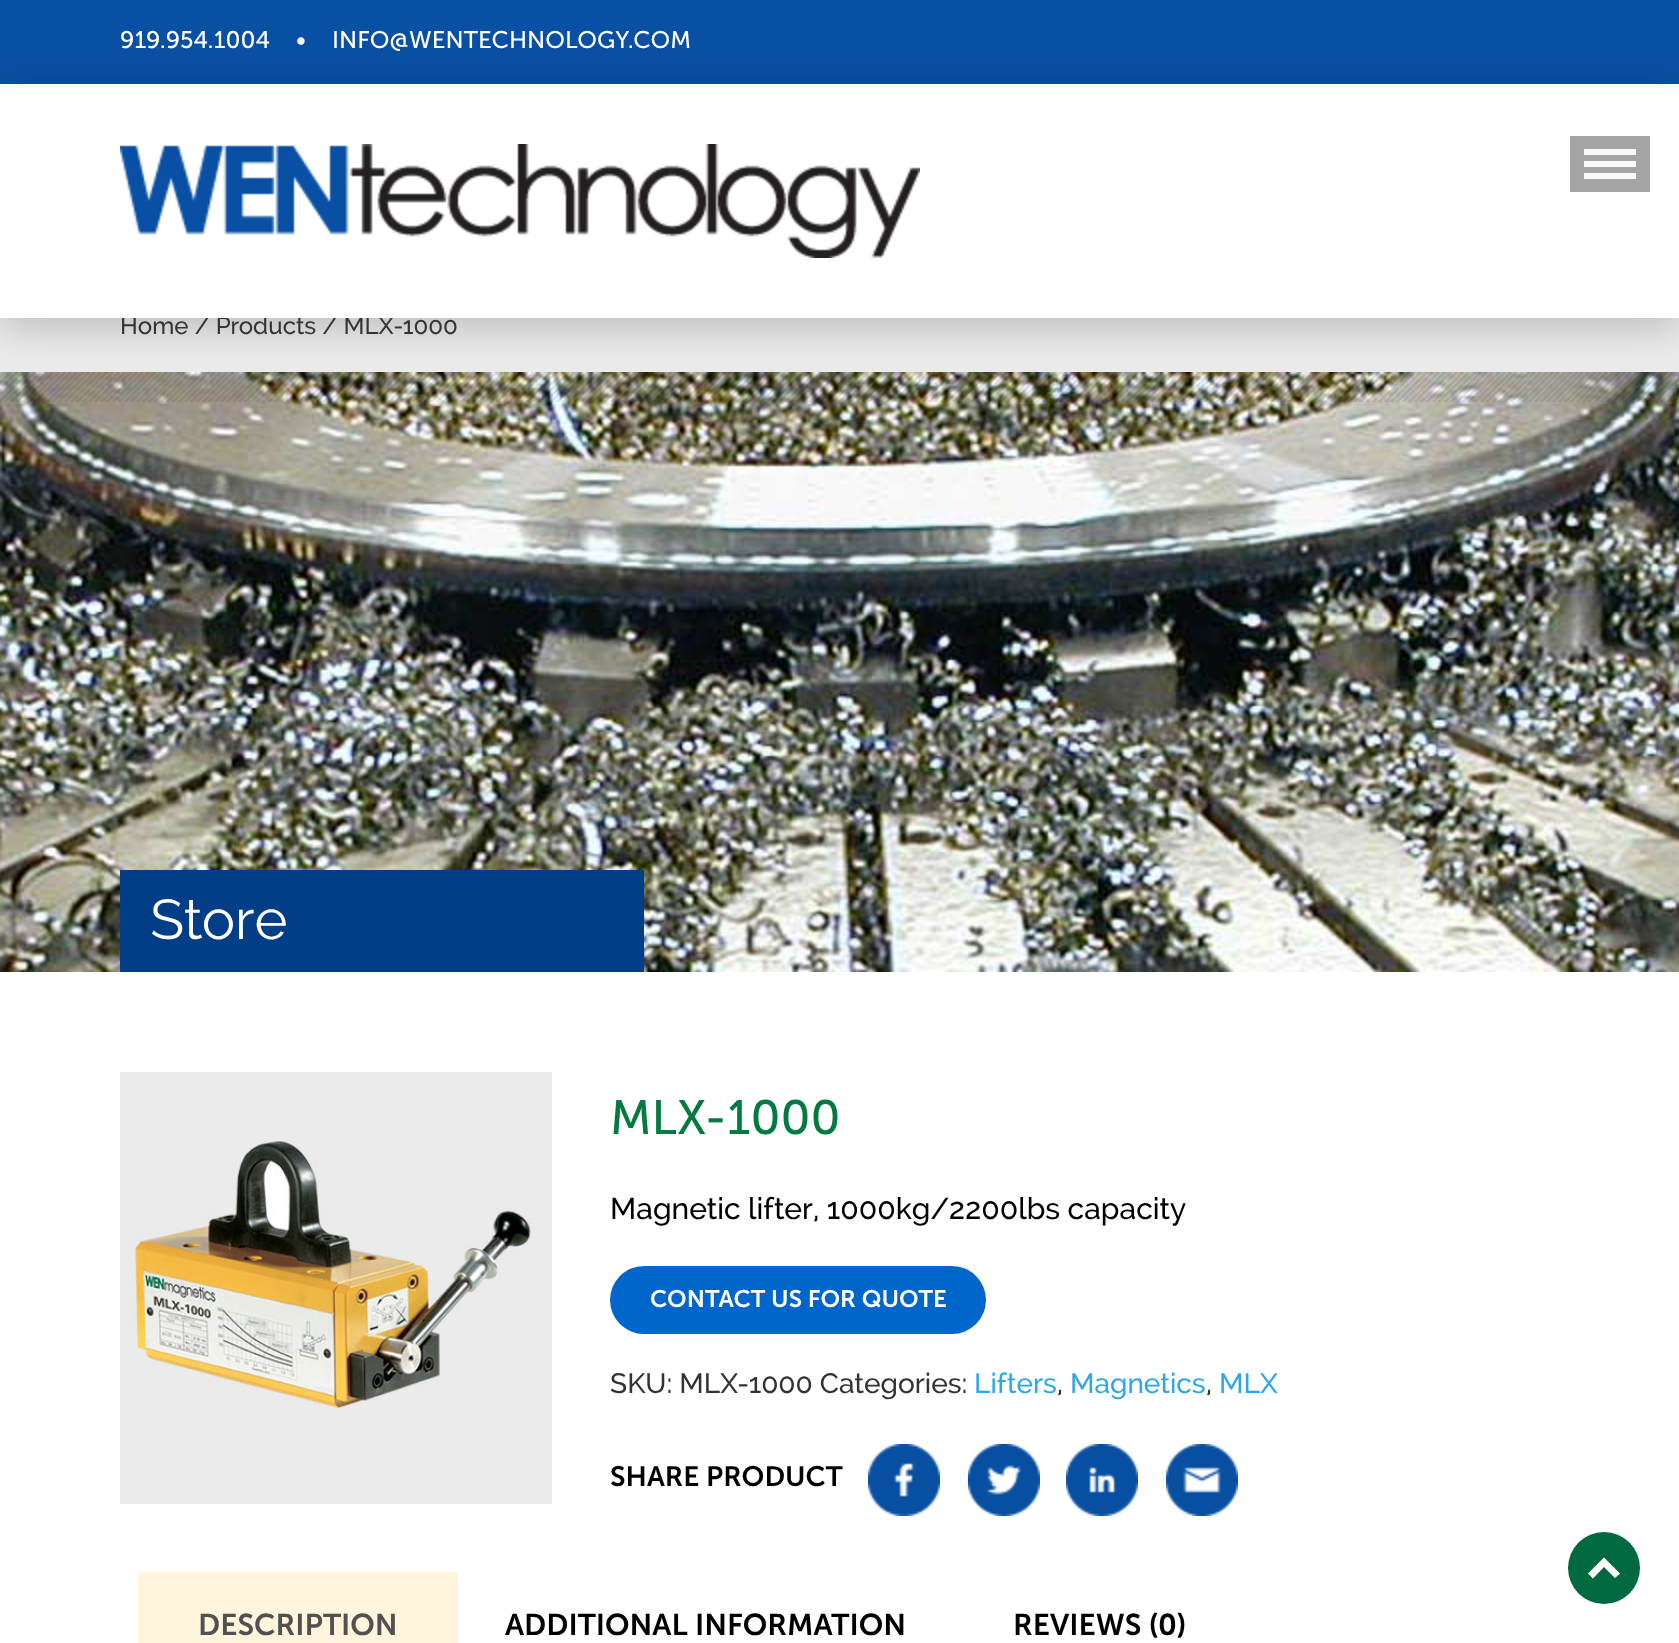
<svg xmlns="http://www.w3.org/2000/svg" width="1679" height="1643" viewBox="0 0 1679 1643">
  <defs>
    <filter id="blur1" x="-50%" y="-200%" width="200%" height="500%"><feGaussianBlur stdDeviation="20"/></filter>
  </defs>
  <rect width="100%" height="100%" fill="#ebebeb"/>
  <rect x="0" y="0" width="1679" height="84" fill="#094fa3"/>
  <text x="120" y="48" font-family="'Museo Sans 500'" font-size="24" fill="#ffffff">919.954.1004</text>
  <text x="296" y="48" font-family="'Museo Sans 500'" font-size="24" fill="#ffffff">•</text>
  <text x="332" y="48" font-family="'Museo Sans 500'" font-size="24" fill="#ffffff">INFO@WENTECHNOLOGY.COM</text>
  <image x="0" y="372" width="1679" height="600" href="img2.png"/>
  <image x="0" y="372" width="1679" height="30" href="img3.png"/>
  <rect x="0" y="94" width="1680" height="234" fill="#000000" fill-opacity="0.2" filter="url(#blur1)"/>
  <text x="120" y="334" font-family="Raleway" font-size="24" font-weight="500" fill="#333333">Home / Products / MLX-1000</text>
  <rect x="0" y="84" width="1679" height="234" fill="#ffffff"/>
  <image x="120" y="144" width="800" height="114" href="img1.png"/>
  <rect x="1570" y="136" width="80" height="56" fill="#a5a5a5"/>
  <rect x="1584" y="149" width="52" height="6" fill="#f9f9f9"/>
  <rect x="1584" y="161" width="52" height="6" fill="#f9f9f9"/>
  <rect x="1584" y="173" width="52" height="6" fill="#f9f9f9"/>
  <rect x="120" y="870" width="524" height="102" fill="#023e87"/>
  <text x="150" y="939" font-family="Raleway" font-size="56" fill="#ffffff">Store</text>
  <rect x="0" y="972" width="1679" height="671" fill="#ffffff"/>
  <image x="120" y="1072" width="432" height="432" href="img4.png"/>
  <text x="610" y="1134" font-family="'Museo Sans 500'" font-size="48" fill="#047940">MLX-1000</text>
  <text x="610" y="1219" font-family="Raleway" font-size="30" font-weight="500" fill="#000000">Magnetic lifter, 1000kg/2200lbs capacity</text>
  <rect x="610" y="1266" width="376" height="68" rx="34" fill="#0066cc"/>
  <text x="650" y="1307" font-family="'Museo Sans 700'" font-size="24" font-weight="600" fill="#ffffff">CONTACT US FOR QUOTE</text>
  <text x="610" y="1393" font-family="Raleway" font-size="28" font-weight="500" fill="#333333">SKU: MLX-1000 Categories:</text>
  <text x="974" y="1393" font-family="Raleway" font-size="28" font-weight="500" fill="#2ea7ea">Lifters</text>
  <text x="1057" y="1393" font-family="Raleway" font-size="28" font-weight="500" fill="#333333">,</text>
  <text x="1070" y="1393" font-family="Raleway" font-size="28" font-weight="500" fill="#2ea7ea">Magnetics</text>
  <text x="1206" y="1393" font-family="Raleway" font-size="28" font-weight="500" fill="#333333">,</text>
  <text x="1219" y="1393" font-family="Raleway" font-size="28" font-weight="500" fill="#2ea7ea">MLX</text>
  <text x="610" y="1486" font-family="'Museo Sans 700'" font-size="28" font-weight="600" fill="#000000">SHARE PRODUCT</text>
  <image x="868" y="1444" width="72" height="72" href="img5.png"/>
  <image x="968" y="1444" width="72" height="72" href="img6.png"/>
  <image x="1066" y="1444" width="72" height="72" href="img7.png"/>
  <image x="1166" y="1444" width="72" height="72" href="img8.png"/>
  <rect x="138" y="1572" width="320" height="71" fill="#fff4dc"/>
  <text x="198" y="1635" font-family="'Museo Sans 700'" font-size="30" font-weight="600" fill="#515151">DESCRIPTION</text>
  <text x="505" y="1635" font-family="'Museo Sans 700'" font-size="30" font-weight="600" fill="#000000">ADDITIONAL INFORMATION</text>
  <text x="1013" y="1635" font-family="'Museo Sans 700'" font-size="30" font-weight="600" fill="#000000">REVIEWS (0)</text>
  <circle cx="1604" cy="1568" r="36" fill="#006940"/>
  <path d="M1604 1557.5L1620 1573.5L1615 1578L1604 1567L1593 1578.5L1588 1573.5Z" fill="#ffffff"/>
</svg>
